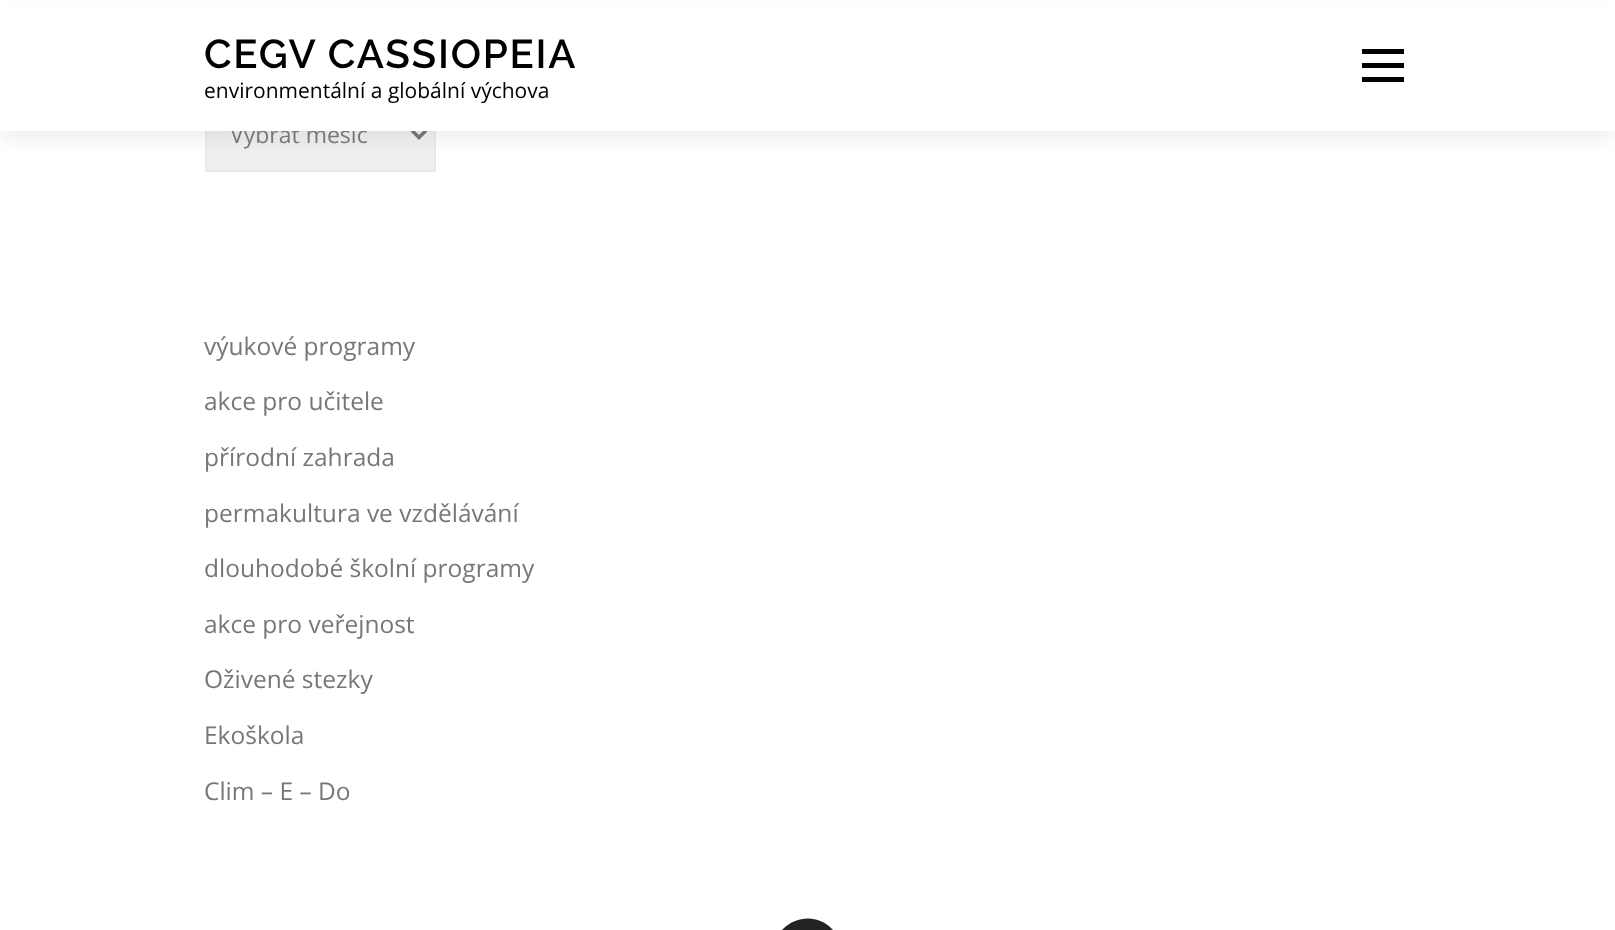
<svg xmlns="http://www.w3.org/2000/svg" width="1615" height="930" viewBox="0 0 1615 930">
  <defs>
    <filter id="blur1" x="-50%" y="-200%" width="200%" height="500%"><feGaussianBlur stdDeviation="9"/></filter>
  </defs>
  <rect width="100%" height="100%" fill="#ffffff"/>
  <rect x="207" y="131" width="227" height="39" fill="#efefef"/>
  <rect x="206" y="99" width="229" height="72" fill="none" stroke="#e9e9e9" stroke-width="2"/>
  <path d="M412 130.5L419 137.5L426 130.5" fill="none" stroke="#777777" stroke-width="3.5"/>
  <rect x="0" y="9" width="1615" height="131" fill="#323232" fill-opacity="0.06" filter="url(#blur1)"/>
  <text x="230" y="143" font-family="Open Sans" font-size="23" fill="#777777">Vybrat měsíc</text>
  <rect x="0" y="2" width="1615" height="129" fill="#ffffff"/>
  <text x="204" y="68" font-family="Raleway" font-size="40.25" font-weight="600" letter-spacing="1.75" fill="#000000">CEGV CASSIOPEIA</text>
  <text x="204" y="98" font-family="Open Sans" font-size="21" fill="#000000">environmentální a globální výchova</text>
  <rect x="1362" y="63" width="42" height="5" fill="#000000"/>
  <rect x="1362" y="49" width="42" height="5" fill="#000000"/>
  <rect x="1362" y="77" width="42" height="5" fill="#000000"/>
  <text x="204" y="355" font-family="Open Sans" font-size="24.5" fill="#777777">výukové programy</text>
  <text x="204" y="410" font-family="Open Sans" font-size="24.5" fill="#777777">akce pro učitele</text>
  <text x="204" y="466" font-family="Open Sans" font-size="24.5" fill="#777777">přírodní zahrada</text>
  <text x="204" y="522" font-family="Open Sans" font-size="24.5" fill="#777777">permakultura ve vzdělávání</text>
  <text x="204" y="577" font-family="Open Sans" font-size="24.5" fill="#777777">dlouhodobé školní programy</text>
  <text x="204" y="633" font-family="Open Sans" font-size="24.5" fill="#777777">akce pro veřejnost</text>
  <text x="204" y="688" font-family="Open Sans" font-size="24.5" fill="#777777">Oživené stezky</text>
  <text x="204" y="744" font-family="Open Sans" font-size="24.5" fill="#777777">Ekoškola</text>
  <text x="204" y="800" font-family="Open Sans" font-size="24.5" fill="#777777">Clim – E – Do</text>
  <path d="M746 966L783 929C797 915 819 915 832 929L869 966L808 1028Z" fill="#222222"/>
</svg>
